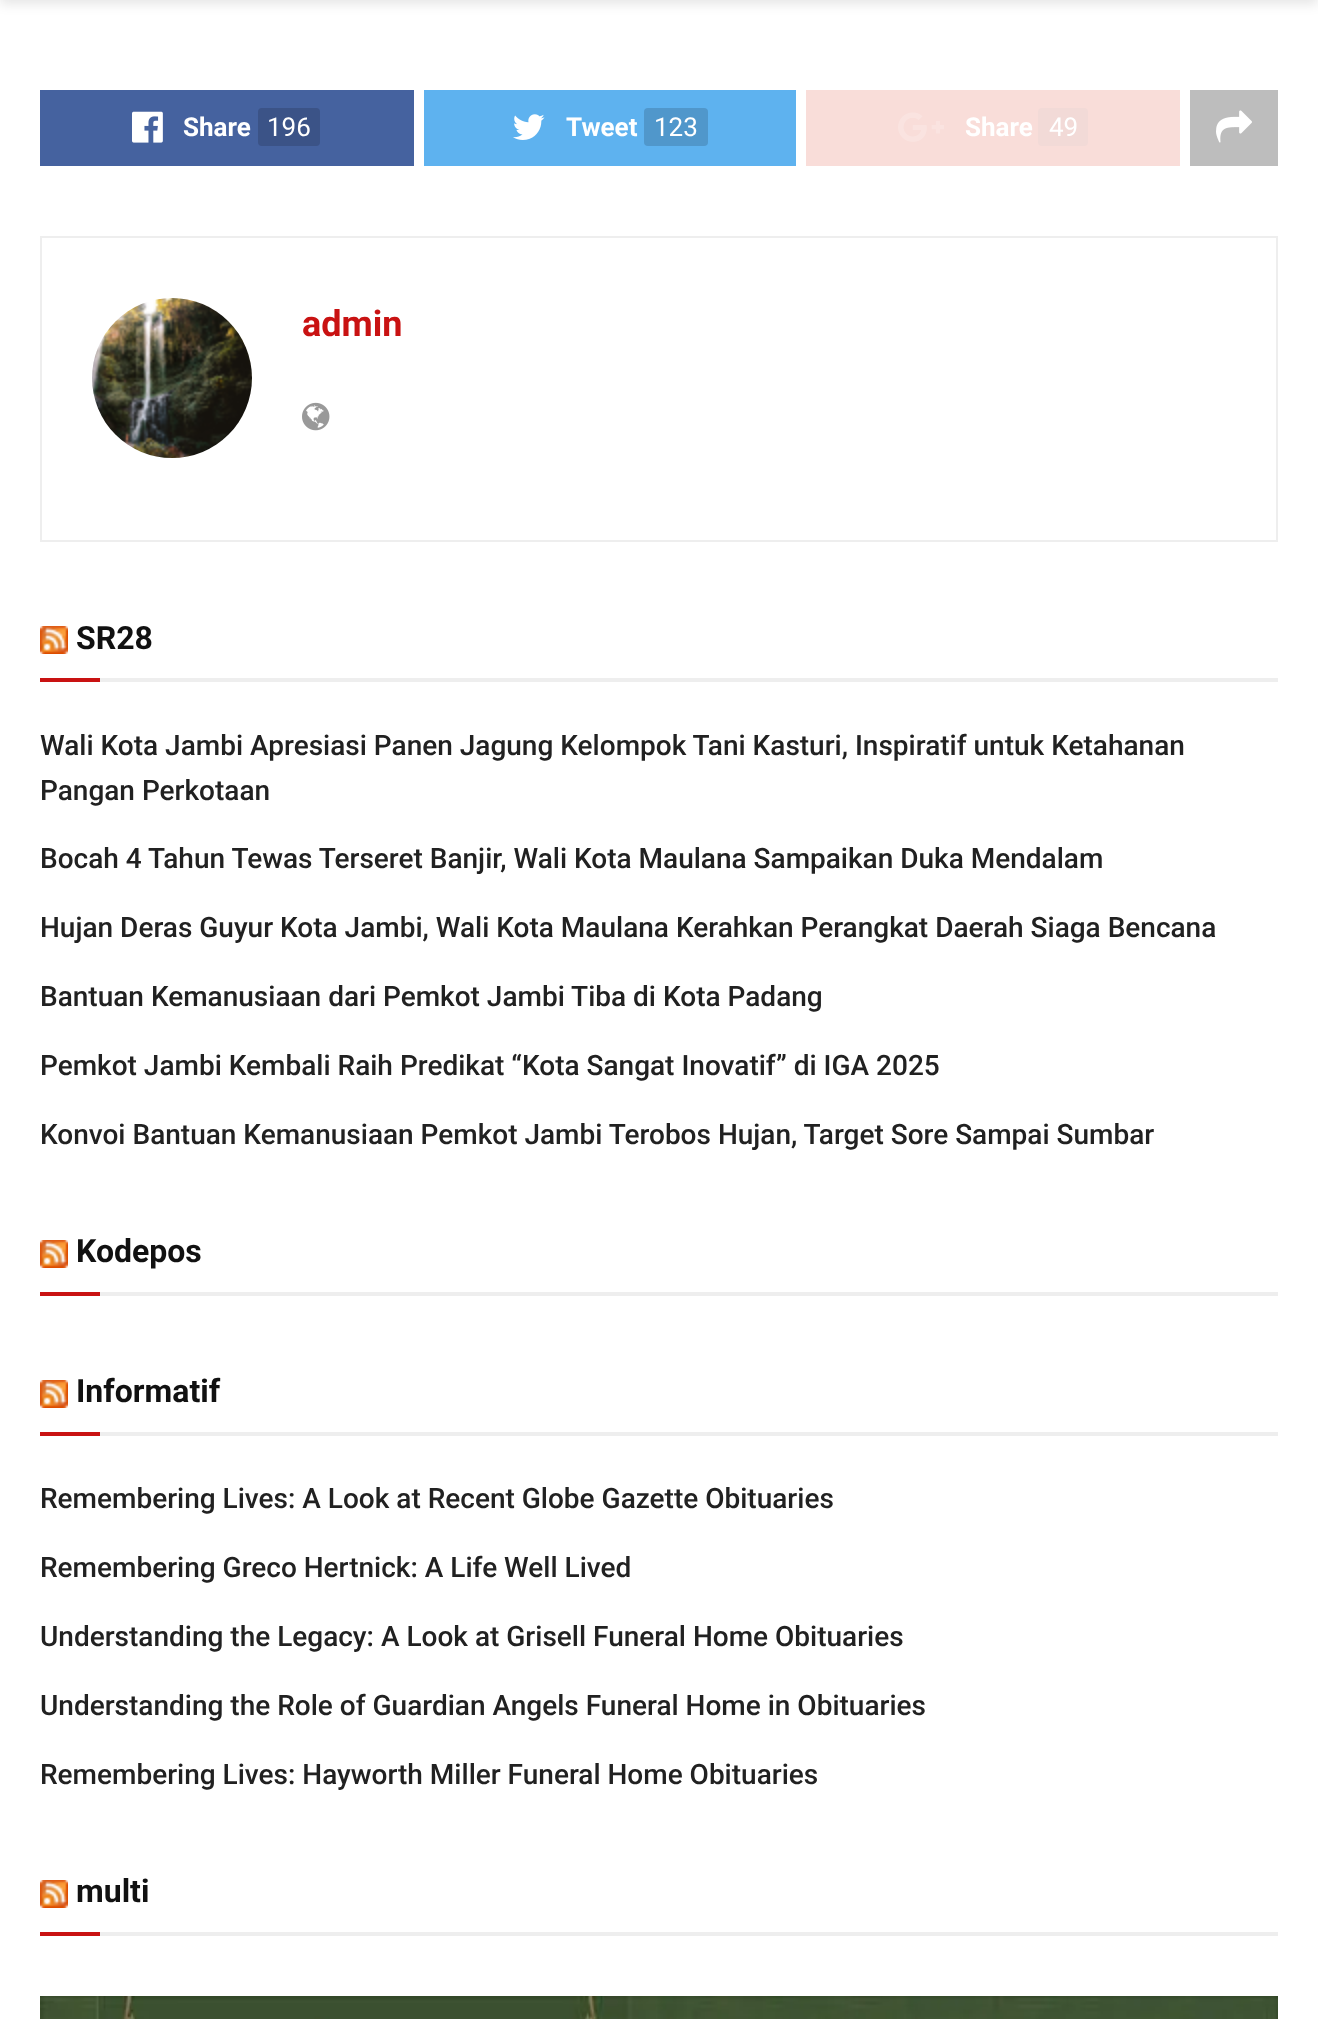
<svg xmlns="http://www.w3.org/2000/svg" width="1318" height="2019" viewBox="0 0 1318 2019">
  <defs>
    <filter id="blur1" x="-50%" y="-200%" width="200%" height="500%"><feGaussianBlur stdDeviation="6"/></filter>
  </defs>
  <rect width="100%" height="100%" fill="#ffffff"/>
  <rect x="0" y="-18" width="1318" height="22" fill="#000000" fill-opacity="0.1" filter="url(#blur1)"/>
  <rect x="40" y="90" width="374" height="76" fill="#45629f"/>
  <image x="132" y="111" width="31" height="32" href="img1.png"/>
  <text x="183" y="136" font-family="Roboto" font-size="26" font-weight="bold" fill="#ffffff">Share</text>
  <rect x="258" y="108" width="62" height="38" rx="4" fill="#3b5387"/>
  <text x="267" y="136" font-family="Roboto" font-size="26" fill="#ffffff">196</text>
  <rect x="424" y="90" width="372" height="76" fill="#5eb2ef"/>
  <image x="513" y="114" width="32" height="26" href="img2.png"/>
  <text x="566" y="136" font-family="Roboto" font-size="26" font-weight="bold" fill="#ffffff">Tweet</text>
  <rect x="644" y="108" width="64" height="38" rx="4" fill="#5097cb"/>
  <text x="654" y="136" font-family="Roboto" font-size="26" fill="#ffffff">123</text>
  <rect x="806" y="90" width="374" height="76" fill="#f9ddd9"/>
  <image x="898" y="112" width="46" height="30" href="img3.png"/>
  <text x="965" y="136" font-family="Roboto" font-size="26" font-weight="bold" fill="#ffffff">Share</text>
  <rect x="1038" y="108" width="50" height="38" rx="4" fill="#f2dad7"/>
  <text x="1049" y="136" font-family="Roboto" font-size="26" fill="#ffffff">49</text>
  <rect x="1190" y="90" width="88" height="76" fill="#bdbdbd"/>
  <image x="1216" y="110" width="36" height="33" href="img4.png"/>
  <rect x="41" y="237" width="1236" height="304" fill="none" stroke="#eeeeee" stroke-width="2"/>
  <image x="92" y="298" width="160" height="160" href="img5.png"/>
  <text x="302" y="336" font-family="Roboto" font-size="36" font-weight="bold" fill="#c91212">admin</text>
  <image x="302" y="402" width="28" height="29" href="img6.png"/>
  <rect x="100" y="678" width="1178" height="4" fill="#eeeeee"/>
  <image x="40" y="626" width="28" height="28" href="img7.png"/>
  <text x="76" y="649" font-family="Roboto" font-size="32" font-weight="bold" fill="#111111">SR28</text>
  <rect x="40" y="678" width="60" height="4" fill="#c91212"/>
  <text x="40" y="755" font-family="Roboto" font-size="28" font-weight="500" fill="#212121">Wali Kota Jambi Apresiasi Panen Jagung Kelompok Tani Kasturi, Inspiratif untuk Ketahanan</text>
  <text x="40" y="800" font-family="Roboto" font-size="28" font-weight="500" fill="#212121">Pangan Perkotaan</text>
  <text x="40" y="868" font-family="Roboto" font-size="28" font-weight="500" fill="#212121">Bocah 4 Tahun Tewas Terseret Banjir, Wali Kota Maulana Sampaikan Duka Mendalam</text>
  <text x="40" y="937" font-family="Roboto" font-size="28" font-weight="500" fill="#212121">Hujan Deras Guyur Kota Jambi, Wali Kota Maulana Kerahkan Perangkat Daerah Siaga Bencana</text>
  <text x="40" y="1006" font-family="Roboto" font-size="28" font-weight="500" fill="#212121">Bantuan Kemanusiaan dari Pemkot Jambi Tiba di Kota Padang</text>
  <text x="40" y="1075" font-family="Roboto" font-size="28" font-weight="500" fill="#212121">Pemkot Jambi Kembali Raih Predikat “Kota Sangat Inovatif” di IGA 2025</text>
  <text x="40" y="1144" font-family="Roboto" font-size="28" font-weight="500" fill="#212121">Konvoi Bantuan Kemanusiaan Pemkot Jambi Terobos Hujan, Target Sore Sampai Sumbar</text>
  <rect x="100" y="1292" width="1178" height="4" fill="#eeeeee"/>
  <image x="40" y="1240" width="28" height="28" href="img7.png"/>
  <text x="76" y="1262" font-family="Roboto" font-size="32" font-weight="bold" fill="#111111">Kodepos</text>
  <rect x="40" y="1292" width="60" height="4" fill="#c91212"/>
  <rect x="100" y="1432" width="1178" height="4" fill="#eeeeee"/>
  <image x="40" y="1380" width="28" height="28" href="img7.png"/>
  <text x="76" y="1402" font-family="Roboto" font-size="32" font-weight="bold" fill="#111111">Informatif</text>
  <rect x="40" y="1432" width="60" height="4" fill="#c91212"/>
  <text x="40" y="1508" font-family="Roboto" font-size="28" font-weight="500" fill="#212121">Remembering Lives: A Look at Recent Globe Gazette Obituaries</text>
  <text x="40" y="1577" font-family="Roboto" font-size="28" font-weight="500" fill="#212121">Remembering Greco Hertnick: A Life Well Lived</text>
  <text x="40" y="1646" font-family="Roboto" font-size="28" font-weight="500" fill="#212121">Understanding the Legacy: A Look at Grisell Funeral Home Obituaries</text>
  <text x="40" y="1715" font-family="Roboto" font-size="28" font-weight="500" fill="#212121">Understanding the Role of Guardian Angels Funeral Home in Obituaries</text>
  <text x="40" y="1784" font-family="Roboto" font-size="28" font-weight="500" fill="#212121">Remembering Lives: Hayworth Miller Funeral Home Obituaries</text>
  <rect x="100" y="1932" width="1178" height="4" fill="#eeeeee"/>
  <image x="40" y="1880" width="28" height="28" href="img7.png"/>
  <text x="76" y="1902" font-family="Roboto" font-size="32" font-weight="bold" fill="#111111">multi</text>
  <rect x="40" y="1932" width="60" height="4" fill="#c91212"/>
  <image x="40" y="1996" width="1238" height="23" href="img8.png"/>
</svg>
